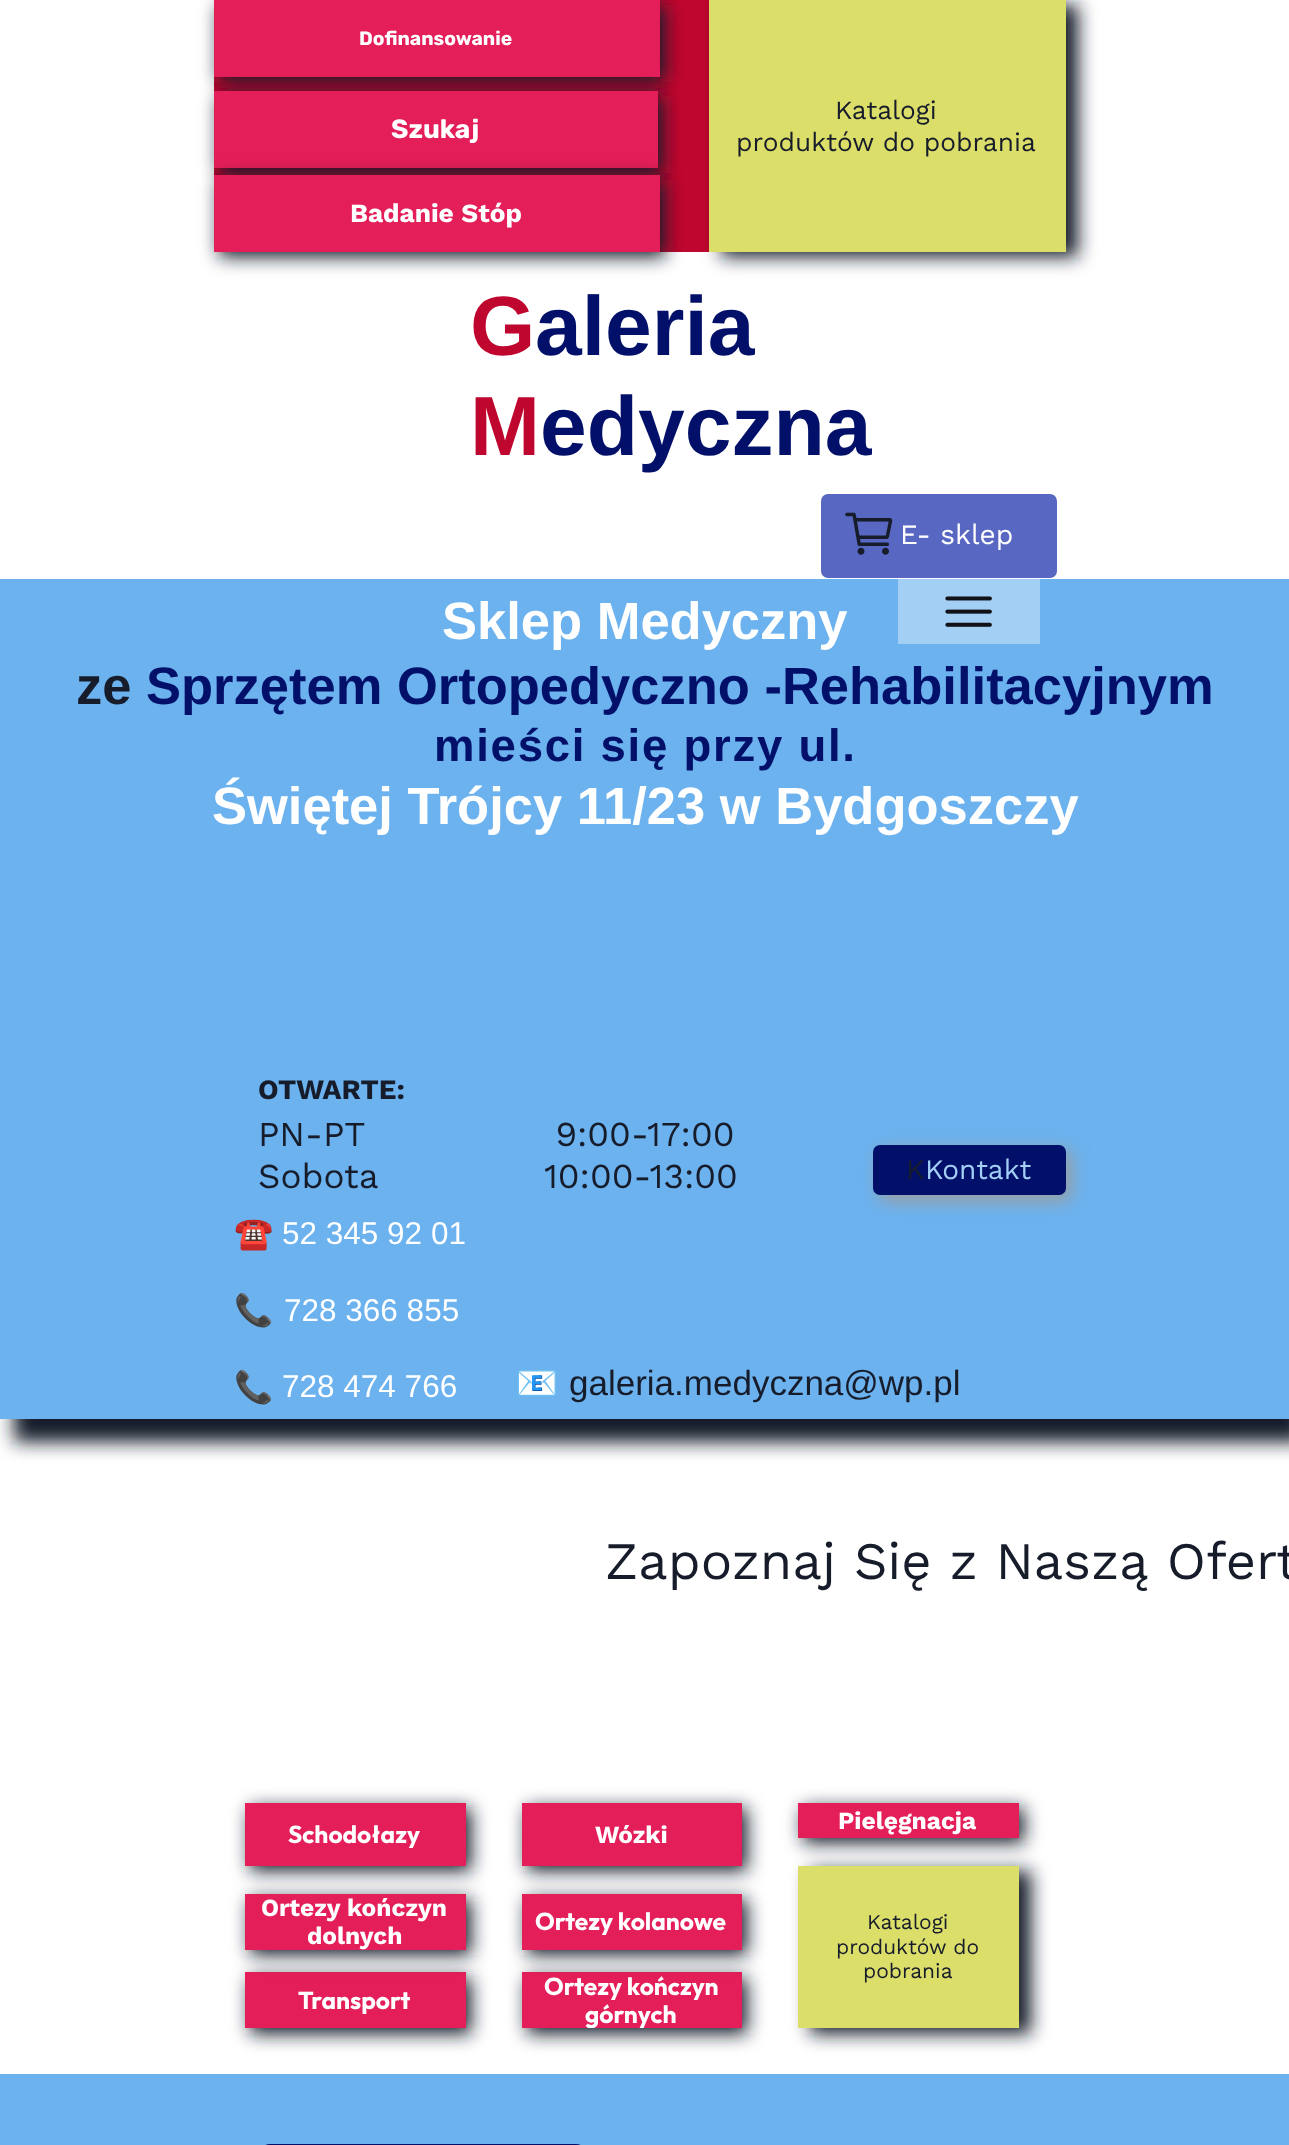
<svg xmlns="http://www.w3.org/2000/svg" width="1289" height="2145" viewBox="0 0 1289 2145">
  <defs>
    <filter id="blur1" x="-50%" y="-200%" width="200%" height="500%"><feGaussianBlur stdDeviation="9"/></filter>
    <clipPath id="clip1"><rect x="522" y="1972" width="220" height="56"/></clipPath>
  </defs>
  <rect width="100%" height="100%" fill="#ffffff"/>
  <rect x="214" y="0" width="495" height="252" fill="#bf062e"/>
  <rect x="219" y="5" width="446" height="77" fill="#171c2b" filter="url(#blur1)"/>
  <rect x="214" y="0" width="446" height="77" fill="#e31e59"/>
  <text x="359" y="45" font-family="Rubik" font-size="19.25" font-weight="bold" fill="#ffffff">Dofinansowanie</text>
  <rect x="219" y="96" width="444" height="77" fill="#171c2b" filter="url(#blur1)"/>
  <rect x="214" y="91" width="444" height="77" fill="#e31e59"/>
  <text x="391" y="138" font-family="Rubik" font-size="26.25" font-weight="bold" fill="#ffffff">Szukaj</text>
  <rect x="721" y="5" width="357" height="252" fill="#171c2b" filter="url(#blur1)"/>
  <rect x="709" y="0" width="357" height="252" fill="#dcde6a"/>
  <text x="835" y="119" font-family="Work Sans" font-size="26.25" fill="#171c2b">Katalogi</text>
  <text x="736" y="151" font-family="Work Sans" font-size="26.25" fill="#171c2b">produktów do pobrania</text>
  <rect x="219" y="180" width="446" height="77" fill="#171c2b" filter="url(#blur1)"/>
  <rect x="214" y="175" width="446" height="77" fill="#e31e59"/>
  <text x="350" y="222" font-family="Work Sans" font-size="26.25" font-weight="bold" fill="#ffffff">Badanie Stóp</text>
  <text x="470" y="355" font-family="Liberation Sans" font-size="84" font-weight="bold" fill="#bf062e">G</text>
  <text x="535" y="355" font-family="Liberation Sans" font-size="84" font-weight="bold" fill="#021069">aleria</text>
  <text x="470" y="455" font-family="Liberation Sans" font-size="84" font-weight="bold" fill="#bf062e">M</text>
  <text x="540" y="455" font-family="Liberation Sans" font-size="84" font-weight="bold" fill="#021069">edyczna</text>
  <rect x="821" y="494" width="236" height="84" rx="7" fill="#5767c2"/>
  <image x="845" y="512" width="48" height="43" href="img1.png"/>
  <text x="900" y="544" font-family="Work Sans" font-size="28" fill="#ffffff">E- sklep</text>
  <rect x="14" y="602" width="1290" height="840" fill="#171c2b" filter="url(#blur1)"/>
  <rect x="0" y="579" width="1289" height="840" fill="#6bb2ef"/>
  <rect x="898" y="579" width="142" height="65" fill="#a3cff5"/>
  <image x="945" y="596" width="47" height="31" href="img2.png"/>
  <text x="442" y="639" font-family="Liberation Sans" font-size="52.5" font-weight="bold" fill="#ffffff">Sklep Medyczny</text>
  <text x="76" y="704" font-family="Liberation Sans" font-size="52.5" font-weight="bold" fill="#171c2b">ze</text>
  <text x="146" y="704" font-family="Liberation Sans" font-size="52.5" font-weight="bold" fill="#021069">Sprzętem Ortopedyczno -Rehabilitacyjnym</text>
  <text x="434" y="761" font-family="Liberation Sans" font-size="45.5" font-weight="bold" letter-spacing="1.75" fill="#021069">mieści się przy ul.</text>
  <text x="212" y="824" font-family="Liberation Sans" font-size="52.5" font-weight="bold" fill="#ffffff">Świętej Trójcy 11/23 w Bydgoszczy</text>
  <text x="258" y="1099" font-family="Work Sans" font-size="28" font-weight="bold" fill="#171c2b">OTWARTE:</text>
  <text x="258" y="1146" font-family="Work Sans" font-size="35" fill="#171c2b" xml:space="preserve">PN-PT                9:00-17:00</text>
  <text x="258" y="1188" font-family="Work Sans" font-size="35" fill="#171c2b" xml:space="preserve">Sobota              10:00-13:00</text>
  <rect x="879" y="1150" width="192" height="51" rx="7" fill="#9c9c9c" filter="url(#blur1)"/>
  <rect x="873" y="1145" width="193" height="50" rx="7" fill="#021069"/>
  <text x="906" y="1179" font-family="Work Sans" font-size="28" fill="#171c2b">K</text>
  <text x="925" y="1179" font-family="Work Sans" font-size="28" fill="#a3cff5">Kontakt</text>
  <text x="234" y="1244" font-family="Noto Color Emoji" font-size="31.5" fill="#171c2b">☎️</text>
  <text x="282" y="1244" font-family="Liberation Sans" font-size="31.5" fill="#ffffff">52 345 92 01</text>
  <text x="234" y="1321" font-family="Noto Color Emoji" font-size="31.5" fill="#171c2b">📞</text>
  <text x="284" y="1321" font-family="Liberation Sans" font-size="31.5" fill="#ffffff">728 366 855</text>
  <text x="234" y="1398" font-family="Noto Color Emoji" font-size="31.5" fill="#171c2b">📞</text>
  <text x="282" y="1397" font-family="Liberation Sans" font-size="31.5" fill="#ffffff">728 474 766</text>
  <text x="515" y="1395" font-family="Noto Color Emoji" font-size="35" fill="#171c2b">📧</text>
  <text x="569" y="1395" font-family="Liberation Sans" font-size="35" fill="#171c2b">galeria.medyczna@wp.pl</text>
  <text x="605" y="1579" font-family="Work Sans" font-size="52.5" fill="#171c2b">Zapoznaj Się z Naszą Ofert</text>
  <rect x="250" y="1808" width="221" height="63" fill="#171c2b" filter="url(#blur1)"/>
  <rect x="245" y="1803" width="221" height="63" fill="#e31e59"/>
  <text x="288" y="1843" font-family="Outfit" font-size="24.5" font-weight="bold" fill="#ffffff">Schodołazy</text>
  <rect x="527" y="1808" width="220" height="63" fill="#171c2b" filter="url(#blur1)"/>
  <rect x="522" y="1803" width="220" height="63" fill="#e31e59"/>
  <text x="595" y="1843" font-family="Work Sans" font-size="24.5" font-weight="bold" fill="#ffffff">Wózki</text>
  <rect x="803" y="1808" width="221" height="35" fill="#171c2b" filter="url(#blur1)"/>
  <rect x="798" y="1803" width="221" height="35" fill="#e31e59"/>
  <text x="838" y="1829" font-family="Work Sans" font-size="24.5" font-weight="bold" fill="#ffffff">Pielęgnacja</text>
  <rect x="250" y="1978" width="221" height="56" fill="#171c2b" filter="url(#blur1)"/>
  <rect x="245" y="1972" width="221" height="56" fill="#e31e59"/>
  <rect x="250" y="1899" width="221" height="56" fill="#171c2b" filter="url(#blur1)"/>
  <rect x="245" y="1894" width="221" height="56" fill="#e31e59"/>
  <text x="261" y="1916" font-family="Work Sans" font-size="24.5" font-weight="bold" fill="#ffffff">Ortezy kończyn</text>
  <text x="307" y="1944" font-family="Work Sans" font-size="24.5" font-weight="bold" fill="#ffffff">dolnych</text>
  <rect x="527" y="1978" width="220" height="56" fill="#171c2b" filter="url(#blur1)"/>
  <rect x="522" y="1972" width="220" height="56" fill="#e31e59"/>
  <rect x="527" y="1899" width="220" height="56" fill="#171c2b" filter="url(#blur1)"/>
  <rect x="522" y="1894" width="220" height="56" fill="#e31e59"/>
  <text x="535" y="1930" font-family="Outfit" font-size="24.5" font-weight="bold" fill="#ffffff">Ortezy kolanowe</text>
  <rect x="810" y="1871" width="221" height="163" fill="#171c2b" filter="url(#blur1)"/>
  <rect x="798" y="1866" width="221" height="162" fill="#dcde6a"/>
  <text x="867" y="1929" font-family="Work Sans" font-size="21" fill="#171c2b">Katalogi</text>
  <text x="836" y="1954" font-family="Work Sans" font-size="21" fill="#171c2b">produktów do</text>
  <text x="863" y="1978" font-family="Work Sans" font-size="21" fill="#171c2b">pobrania</text>
  <text x="298" y="2009" font-family="Outfit" font-size="24.5" font-weight="bold" fill="#ffffff">Transport</text>
  <text x="544" y="1995" font-family="Outfit" font-size="24.5" font-weight="bold" fill="#ffffff">Ortezy kończyn</text>
  <g clip-path="url(#clip1)">
    <text x="585" y="2023" font-family="Outfit" font-size="24.5" font-weight="bold" fill="#ffffff">górnych</text>
  </g>
  <rect x="0" y="2074" width="1289" height="71" fill="#6bb2ef"/>
  <rect x="263" y="2144" width="320" height="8" rx="7" fill="#021069"/>
</svg>
